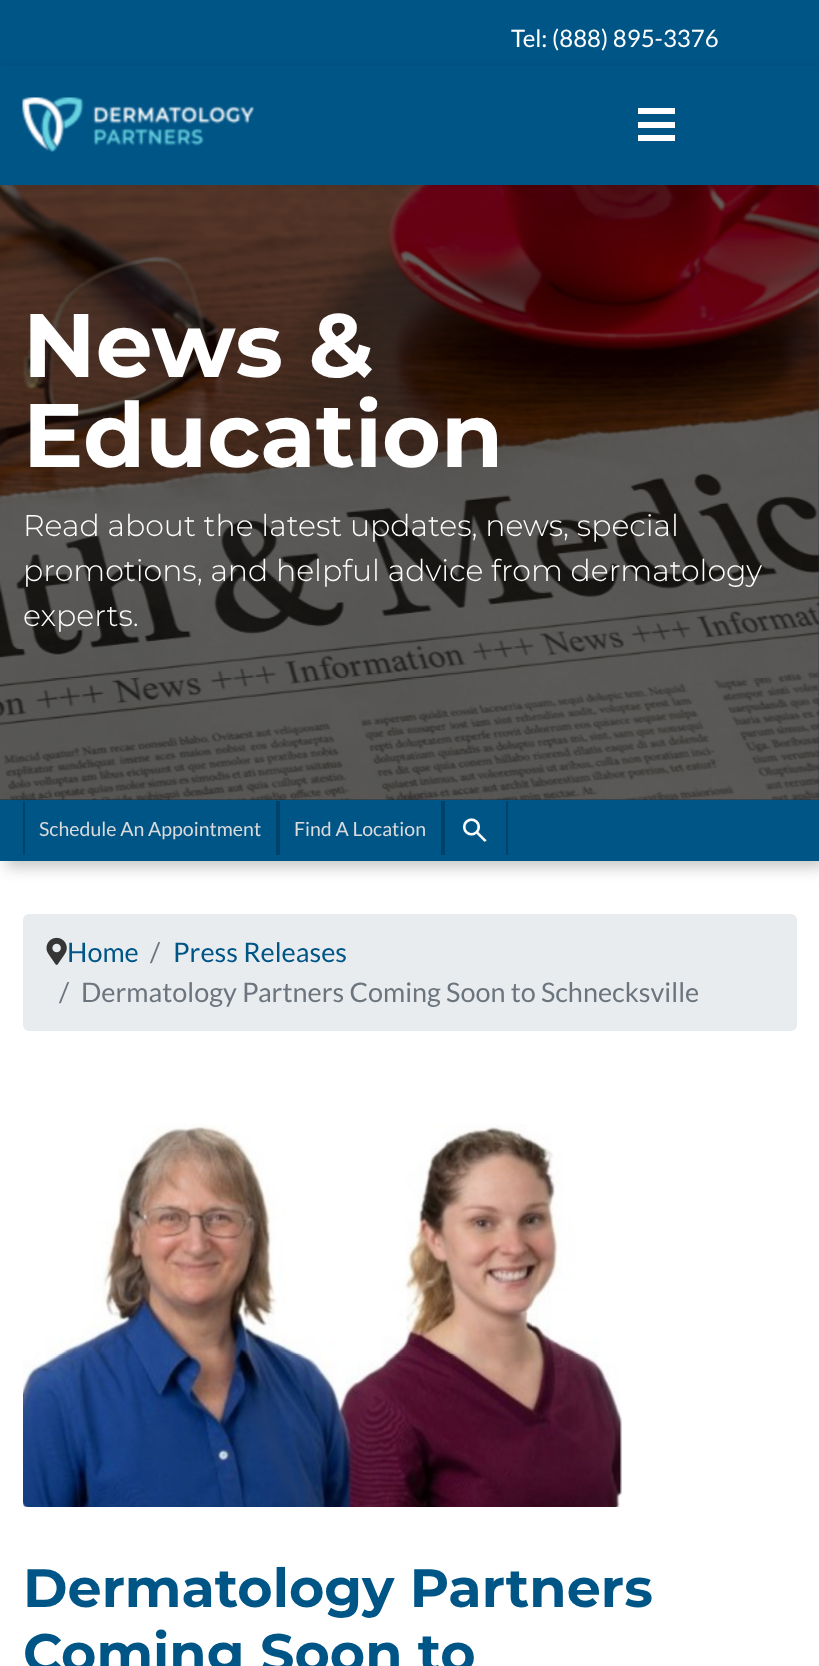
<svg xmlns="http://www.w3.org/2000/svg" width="819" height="1666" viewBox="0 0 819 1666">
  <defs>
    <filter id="blur1" x="-50%" y="-200%" width="200%" height="500%"><feGaussianBlur stdDeviation="7.5"/></filter>
    <filter id="blur2" x="-50%" y="-200%" width="200%" height="500%"><feGaussianBlur stdDeviation="3"/></filter>
  </defs>
  <rect width="100%" height="100%" fill="#ffffff"/>
  <rect x="0" y="0" width="819" height="65" fill="#005587"/>
  <text x="511" y="47" font-family="Lato" font-size="24" fill="#ffffff">Tel: (888) 895-3376</text>
  <image x="0" y="185" width="819" height="615" href="img2.png"/>
  <rect x="6" y="806" width="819" height="61" fill="#c4c4c4" filter="url(#blur1)"/>
  <rect x="0" y="185" width="819" height="615" fill="#005587" fill-opacity="0.6"/>
  <image x="0" y="185" width="819" height="615" href="img3.png"/>
  <rect x="0" y="185" width="819" height="615" fill="#000000" fill-opacity="0.6"/>
  <rect x="0" y="65" width="819" height="120" fill="#000000" fill-opacity="0.1" filter="url(#blur2)"/>
  <rect x="0" y="65" width="819" height="120" fill="#005587"/>
  <image x="22" y="97" width="232" height="55" href="img1.png"/>
  <rect x="638" y="108" width="37" height="6" fill="#ffffff"/>
  <rect x="638" y="122" width="37" height="6" fill="#ffffff"/>
  <rect x="638" y="135" width="37" height="6" fill="#ffffff"/>
  <text x="23" y="377" font-family="Montserrat" font-size="90" font-weight="bold" fill="#ffffff">News &amp;</text>
  <text x="23" y="467" font-family="Montserrat" font-size="90" font-weight="bold" fill="#ffffff">Education</text>
  <text x="23" y="536" font-family="Montserrat" font-size="30" font-weight="300" fill="#ffffff">Read about the latest updates, news, special</text>
  <text x="23" y="581" font-family="Montserrat" font-size="30" font-weight="300" fill="#ffffff">promotions, and helpful advice from dermatology</text>
  <text x="23" y="626" font-family="Montserrat" font-size="30" font-weight="300" fill="#ffffff">experts.</text>
  <rect x="0" y="800" width="819" height="61" fill="#005587"/>
  <text x="39" y="836" font-family="Lato" font-size="19.5" fill="#dbdbdb">Schedule An Appointment</text>
  <rect x="276" y="801" width="4" height="54" fill="#01426a"/>
  <rect x="23" y="801" width="2" height="54" fill="#01426a"/>
  <text x="294" y="836" font-family="Lato" font-size="19.5" fill="#dbdbdb">Find A Location</text>
  <rect x="441" y="801" width="4" height="54" fill="#01426a"/>
  <image x="463" y="818" width="24" height="24" href="img4.png"/>
  <rect x="506" y="801" width="2" height="54" fill="#01426a"/>
  <rect x="23" y="914" width="774" height="117" rx="6" fill="#e9ecef"/>
  <image x="46" y="937" width="21" height="28" href="img5.png"/>
  <text x="67" y="962" font-family="Lato" font-size="27" fill="#005587">Home</text>
  <text x="150" y="962" font-family="Lato" font-size="27" fill="#6c757d">/</text>
  <text x="173" y="962" font-family="Lato" font-size="27" fill="#005587">Press Releases</text>
  <text x="59" y="1002" font-family="Lato" font-size="27" fill="#6c757d">/</text>
  <text x="81" y="1002" font-family="Lato" font-size="27" fill="#6c757d">Dermatology Partners Coming Soon to Schnecksville</text>
  <image x="23" y="1124" width="599" height="383" href="img6.png"/>
  <text x="23" y="1607" font-family="Montserrat" font-size="54" font-weight="bold" fill="#005587">Dermatology Partners</text>
  <text x="23" y="1672" font-family="Montserrat" font-size="54" font-weight="bold" fill="#005587">Coming Soon to</text>
</svg>
